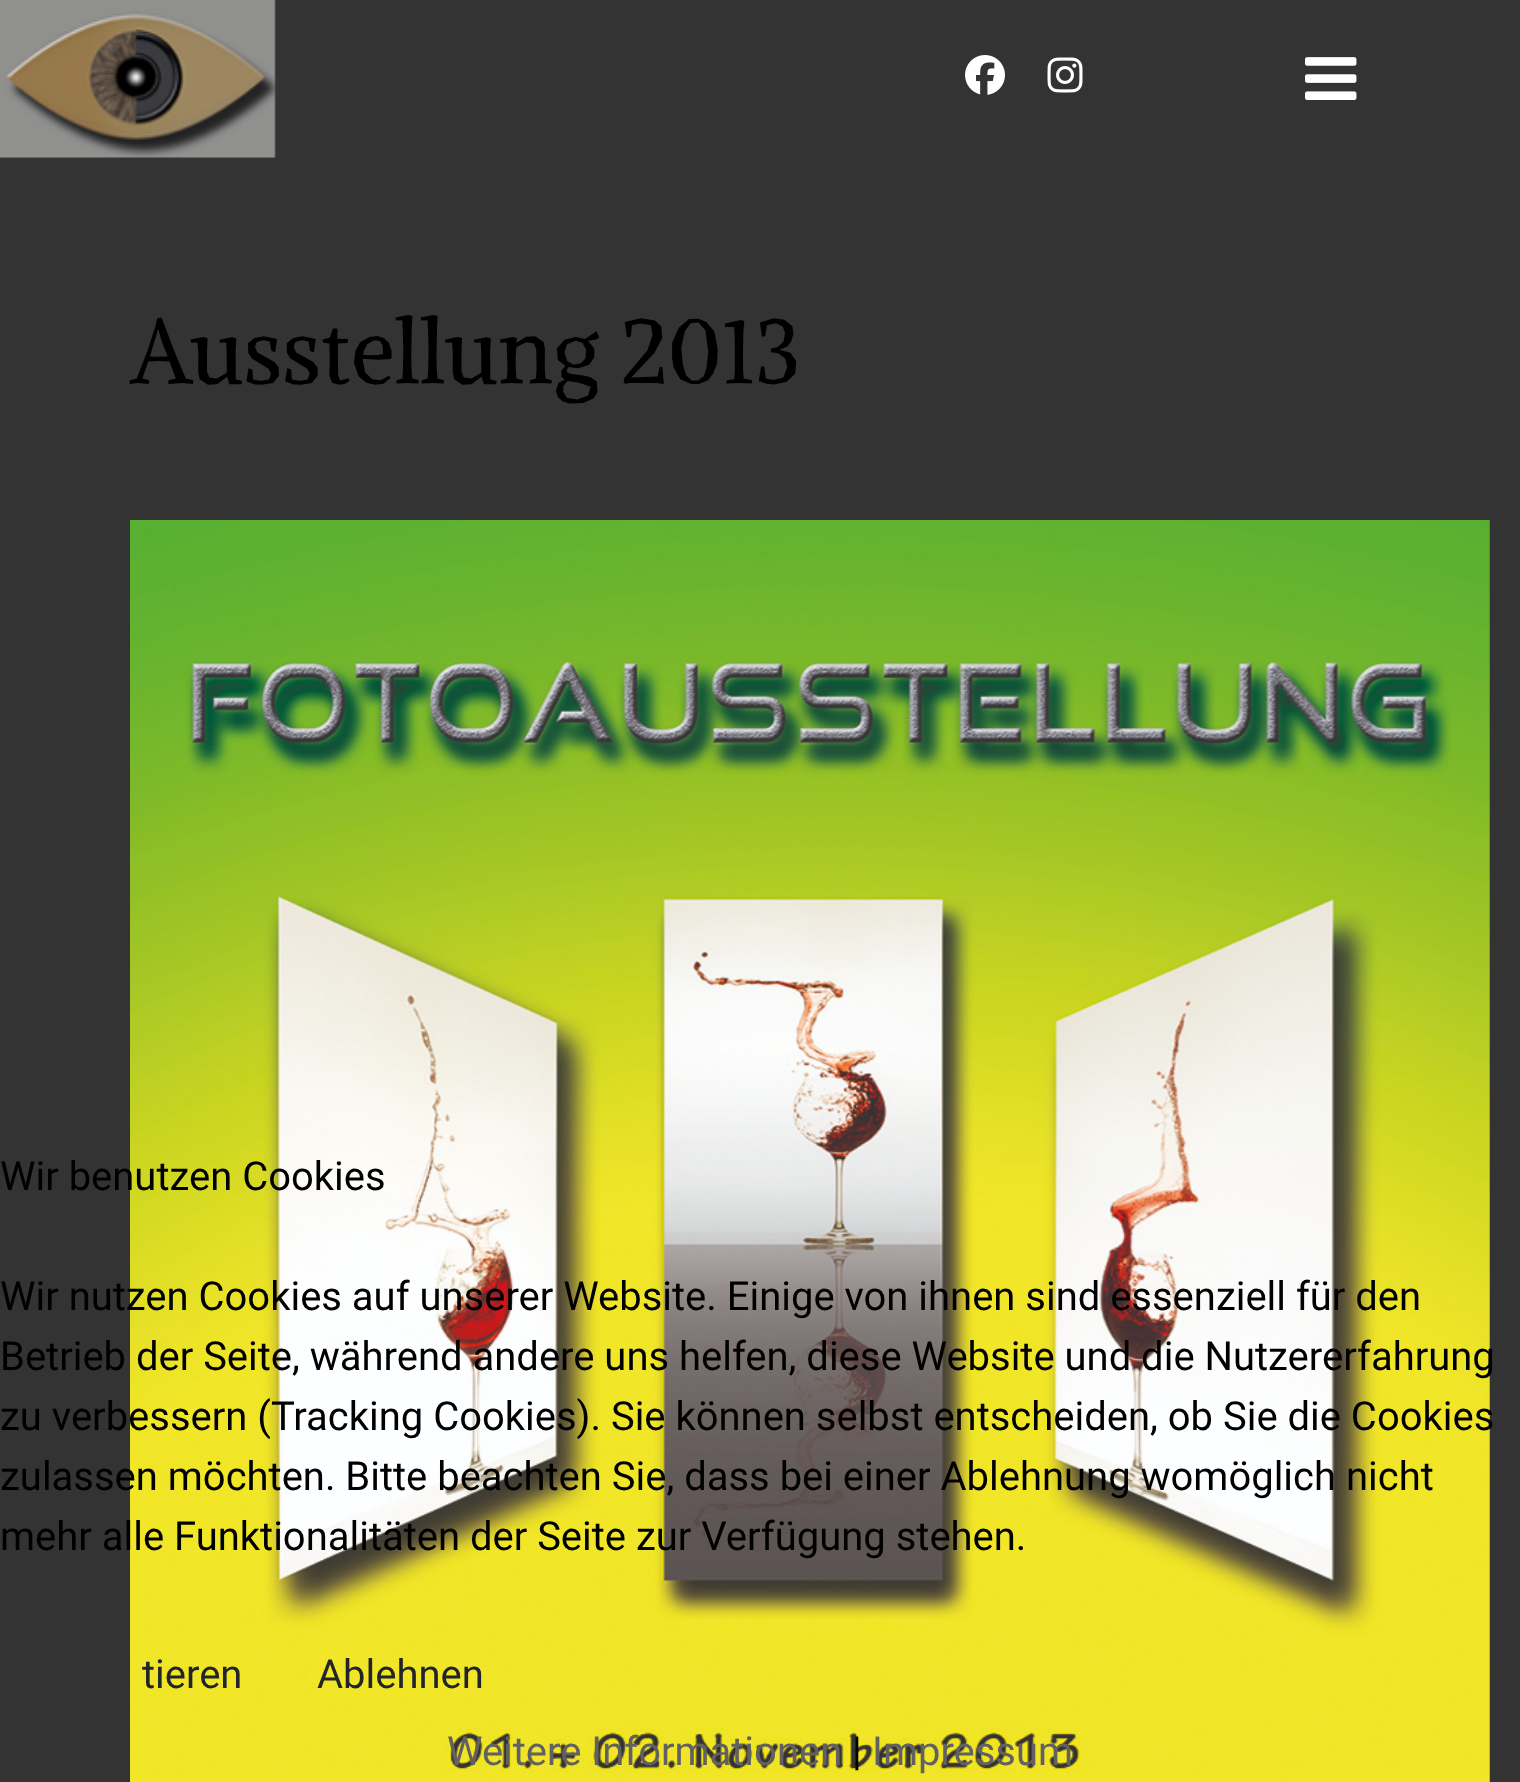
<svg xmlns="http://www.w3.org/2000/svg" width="1520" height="1782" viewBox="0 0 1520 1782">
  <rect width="100%" height="100%" fill="#333333"/>
  <image x="0" y="0" width="276" height="158" href="img1.png"/>
  <image x="965" y="55" width="40" height="40" href="img2.png"/>
  <image x="1047" y="57" width="36" height="36" href="img3.png"/>
  <image x="1305" y="57" width="52" height="43" href="img4.png"/>
  <text x="130" y="383" font-family="Alike Angular" font-size="90" fill="#000000">Ausstellung 2013</text>
  <image x="130" y="520" width="1360" height="1262" href="img5.png"/>
  <text x="0" y="1190" font-family="Roboto" font-size="40" fill="#000000">Wir benutzen Cookies</text>
  <text x="0" y="1310" font-family="Roboto" font-size="40" fill="#000000">Wir nutzen Cookies auf unserer Website. Einige von ihnen sind essenziell für den</text>
  <text x="0" y="1370" font-family="Roboto" font-size="40" fill="#000000">Betrieb der Seite, während andere uns helfen, diese Website und die Nutzererfahrung</text>
  <text x="0" y="1430" font-family="Roboto" font-size="40" fill="#000000">zu verbessern (Tracking Cookies). Sie können selbst entscheiden, ob Sie die Cookies</text>
  <text x="0" y="1490" font-family="Roboto" font-size="40" fill="#000000">zulassen möchten. Bitte beachten Sie, dass bei einer Ablehnung womöglich nicht</text>
  <text x="0" y="1550" font-family="Roboto" font-size="40" fill="#000000">mehr alle Funktionalitäten der Seite zur Verfügung stehen.</text>
  <text x="142" y="1688" font-family="Roboto" font-size="40" fill="#212529">tieren</text>
  <text x="317" y="1688" font-family="Roboto" font-size="40" fill="#212529">Ablehnen</text>
  <text x="447" y="1765" font-family="Roboto" font-size="40" fill="#616161">Weitere Informationen</text>
  <text x="852" y="1765" font-family="Roboto" font-size="40" fill="#000000">|</text>
  <text x="872" y="1765" font-family="Roboto" font-size="40" fill="#616161">Impressum</text>
</svg>
